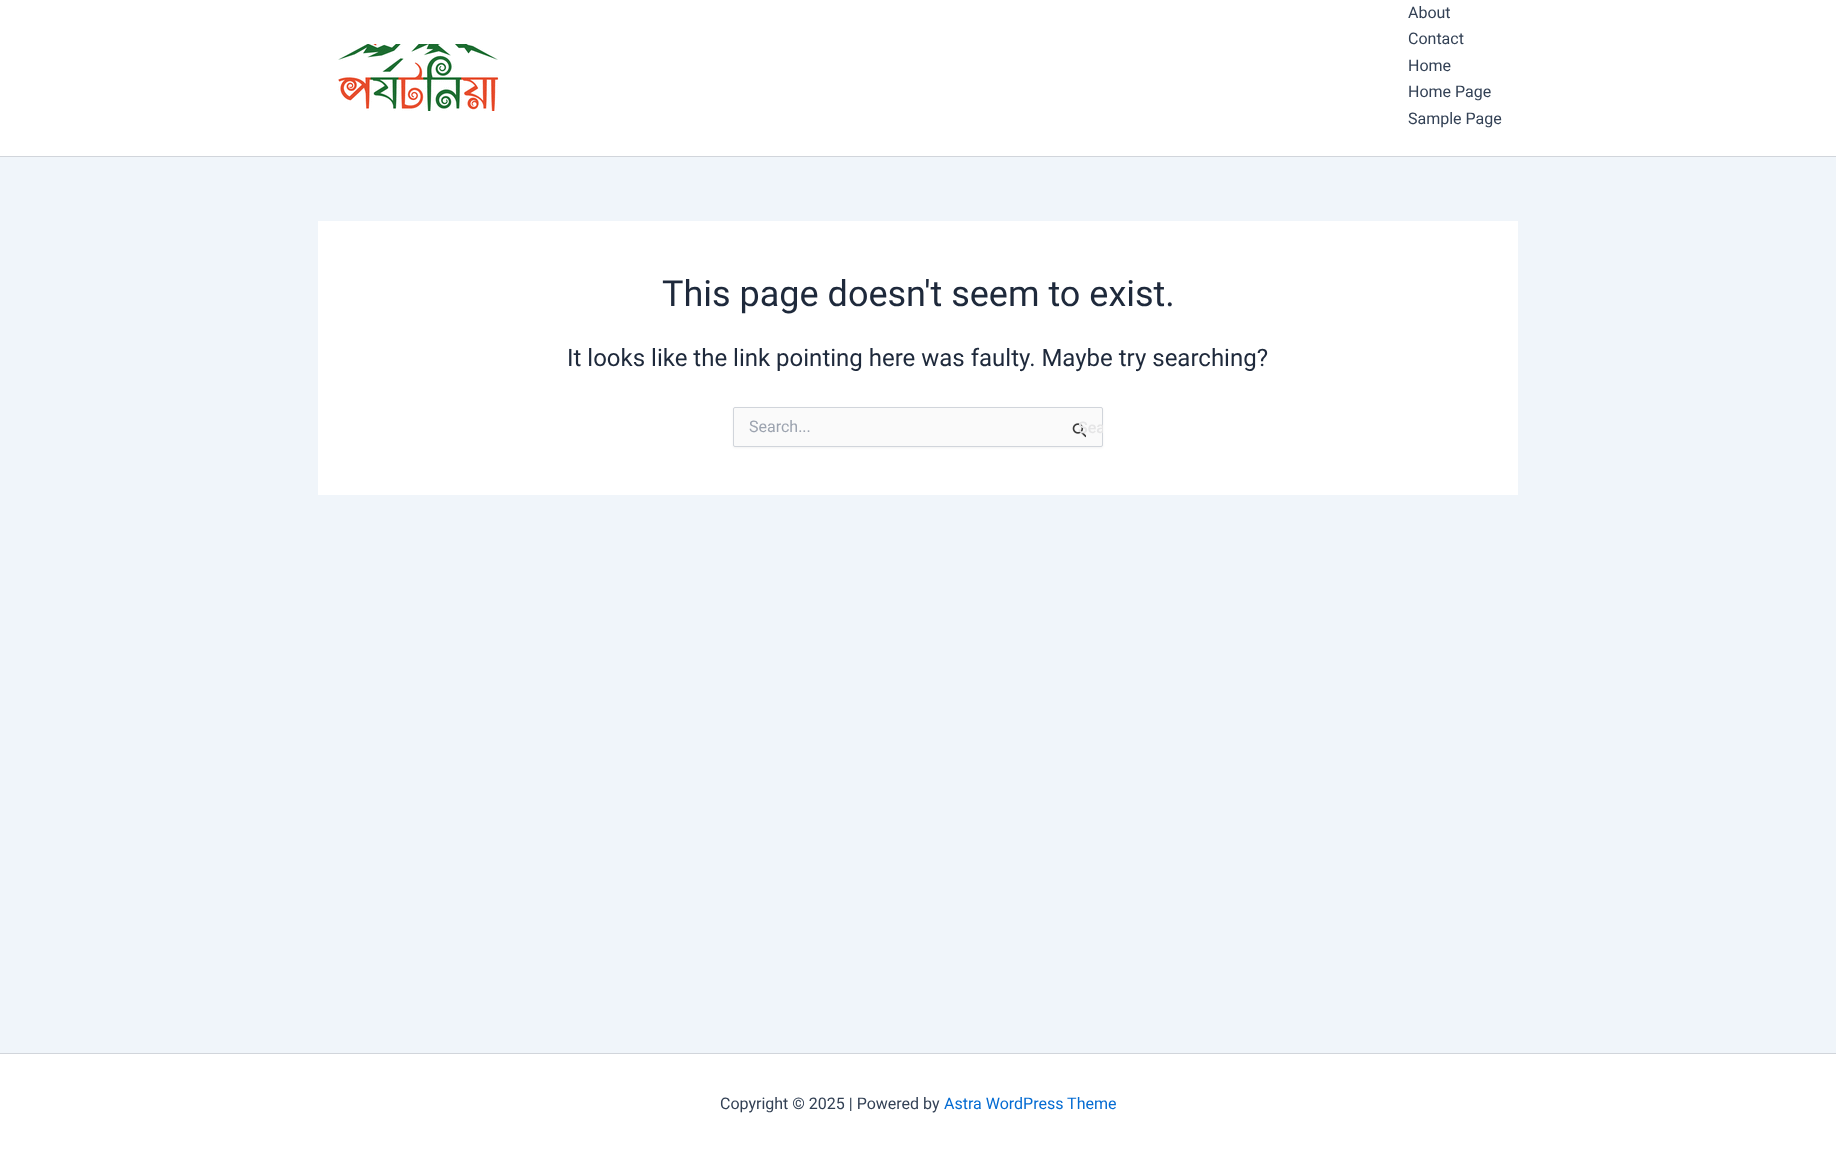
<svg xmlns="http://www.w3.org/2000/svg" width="1836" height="1154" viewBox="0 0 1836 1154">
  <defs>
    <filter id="blur1" x="-50%" y="-200%" width="200%" height="500%"><feGaussianBlur stdDeviation="1"/></filter>
    <clipPath id="clip1"><rect x="1058" y="407" width="45" height="42" rx="2"/></clipPath>
  </defs>
  <rect width="100%" height="100%" fill="#f0f5fa"/>
  <rect x="0" y="0" width="1836" height="156" fill="#ffffff"/>
  <rect x="0" y="156" width="1836" height="1" fill="#d1d5db"/>
  <image x="338" y="44" width="161" height="67" href="img1.png"/>
  <text x="1408" y="18" font-family="Roboto" font-size="16" fill="#334155">About</text>
  <text x="1408" y="44" font-family="Roboto" font-size="16" fill="#334155">Contact</text>
  <text x="1408" y="71" font-family="Roboto" font-size="16" fill="#334155">Home</text>
  <text x="1408" y="97" font-family="Roboto" font-size="16" fill="#334155">Home Page</text>
  <text x="1408" y="124" font-family="Roboto" font-size="16" fill="#334155">Sample Page</text>
  <rect x="318" y="221" width="1200" height="274" fill="#ffffff"/>
  <text x="662" y="306" font-family="Roboto" font-size="36" fill="#1e293b">This page doesn't seem to exist.</text>
  <text x="567" y="366" font-family="Roboto" font-size="24" fill="#1e293b">It looks like the link pointing here was faulty. Maybe try searching?</text>
  <rect x="733" y="408" width="370" height="40" rx="2" fill="#000000" fill-opacity="0.05" filter="url(#blur1)"/>
  <rect x="733.5" y="407.5" width="369" height="39" rx="1.5" fill="#fafafa" stroke="#d1d5db"/>
  <text x="749" y="432" font-family="Roboto" font-size="16" fill="#9ca3af">Search...</text>
  <image x="1072" y="423" width="14" height="15" href="img2.png"/>
  <g clip-path="url(#clip1)">
    <text x="1078" y="433" font-family="Roboto" font-size="16" font-weight="500" fill="#e5e5e6">Sea</text>
  </g>
  <rect x="0" y="1054" width="1836" height="100" fill="#ffffff"/>
  <rect x="0" y="1053" width="1836" height="1" fill="#d1d5db"/>
  <text x="720" y="1109" font-family="Roboto" font-size="16" fill="#334155">Copyright © 2025 | Powered by</text>
  <text x="944" y="1109" font-family="Roboto" font-size="16" fill="#046bd2">Astra WordPress Theme</text>
</svg>
